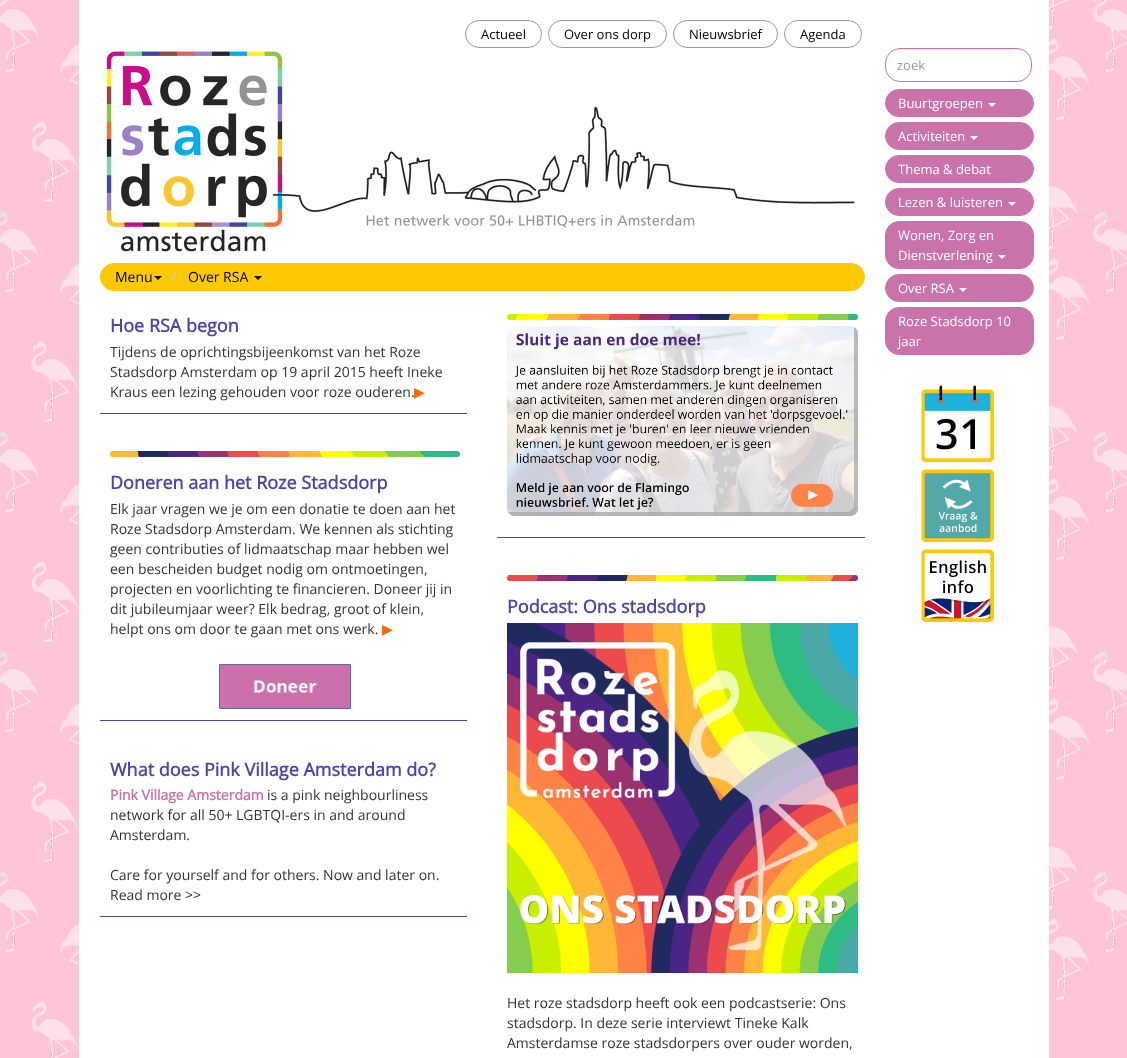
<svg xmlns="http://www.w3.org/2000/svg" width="1127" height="1058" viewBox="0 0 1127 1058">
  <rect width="100%" height="100%" fill="#ffffff"/>
  <image x="0" y="0" width="1127" height="1058" href="img1.png"/>
  <rect x="79" y="0" width="970" height="1058" fill="#ffffff"/>
  <rect x="465.5" y="20.5" width="76" height="27" rx="13.5" fill="none" stroke="#9b9b9b"/>
  <text x="481" y="39" font-family="Open Sans" font-size="13" fill="#000000">Actueel</text>
  <rect x="548.5" y="20.5" width="118" height="27" rx="13.5" fill="none" stroke="#9b9b9b"/>
  <text x="564" y="39" font-family="Open Sans" font-size="13" fill="#000000">Over ons dorp</text>
  <rect x="673.5" y="20.5" width="104" height="27" rx="13.5" fill="none" stroke="#9b9b9b"/>
  <text x="689" y="39" font-family="Open Sans" font-size="13" fill="#000000">Nieuwsbrief</text>
  <rect x="784.5" y="20.5" width="77" height="27" rx="13.5" fill="none" stroke="#9b9b9b"/>
  <text x="800" y="39" font-family="Open Sans" font-size="13" fill="#000000">Agenda</text>
  <path d="M900 50H1017C1025 50 1031 56 1031 64C1031 45 1010 49 998 49H920C907 49 886 45 886 64C886 56 892 50 900 50Z" fill="#ececec"/>
  <rect x="885.5" y="48.5" width="146" height="33" rx="14.5" fill="none" stroke="#ca73aa"/>
  <text x="897" y="70" font-family="Open Sans" font-size="13" fill="#999999">zoek</text>
  <rect x="885.5" y="89.5" width="148" height="27" rx="13.5" fill="#ca73aa" stroke="#ca73aa"/>
  <text x="898" y="108" font-family="Open Sans" font-size="13" fill="#ffffff">Buurtgroepen</text>
  <path d="M988 103H996L992 107Z" fill="#ffffff"/>
  <rect x="885.5" y="122.5" width="148" height="27" rx="13.5" fill="#ca73aa" stroke="#ca73aa"/>
  <text x="898" y="141" font-family="Open Sans" font-size="13" fill="#ffffff">Activiteiten</text>
  <path d="M970 136H978L974 140Z" fill="#ffffff"/>
  <rect x="885.5" y="155.5" width="148" height="27" rx="13.5" fill="#ca73aa" stroke="#ca73aa"/>
  <text x="898" y="174" font-family="Open Sans" font-size="13" fill="#ffffff">Thema &amp; debat</text>
  <rect x="885.5" y="188.5" width="148" height="27" rx="13.5" fill="#ca73aa" stroke="#ca73aa"/>
  <text x="898" y="207" font-family="Open Sans" font-size="13" fill="#ffffff">Lezen &amp; luisteren</text>
  <path d="M1008 202H1016L1012 206Z" fill="#ffffff"/>
  <rect x="885.5" y="221.5" width="148" height="47" rx="13.5" fill="#ca73aa" stroke="#ca73aa"/>
  <text x="898" y="240" font-family="Open Sans" font-size="13" fill="#ffffff">Wonen, Zorg en</text>
  <text x="898" y="260" font-family="Open Sans" font-size="13" fill="#ffffff">Dienstverlening</text>
  <path d="M998 255H1006L1002 259Z" fill="#ffffff"/>
  <rect x="885.5" y="274.5" width="148" height="27" rx="13.5" fill="#ca73aa" stroke="#ca73aa"/>
  <text x="898" y="293" font-family="Open Sans" font-size="13" fill="#ffffff">Over RSA</text>
  <path d="M959 288H967L963 292Z" fill="#ffffff"/>
  <rect x="885.5" y="307.5" width="148" height="47" rx="13.5" fill="#ca73aa" stroke="#ca73aa"/>
  <text x="898" y="326" font-family="Open Sans" font-size="13" fill="#ffffff">Roze Stadsdorp 10</text>
  <text x="898" y="346" font-family="Open Sans" font-size="13" fill="#ffffff">jaar</text>
  <image x="921" y="385" width="73" height="77" href="img2.png"/>
  <image x="921" y="469" width="73" height="73" href="img3.png"/>
  <image x="921" y="549" width="73" height="73" href="img4.png"/>
  <image x="106" y="51" width="749" height="201" href="img5.png"/>
  <rect x="100.5" y="263.5" width="764" height="27" rx="13.5" fill="#fec803" stroke="#fec803"/>
  <text x="115" y="282" font-family="Open Sans" font-size="14" fill="#000000">Menu</text>
  <path d="M154 276H162L158 280Z" fill="#000000"/>
  <text x="171" y="282" font-family="Open Sans" font-size="14" fill="#cccccc">/</text>
  <text x="188" y="282" font-family="Open Sans" font-size="14" fill="#000000">Over RSA</text>
  <path d="M254 276H262L258 280Z" fill="#000000"/>
  <rect x="100" y="413" width="367" height="1" fill="#4b46aa"/>
  <text x="110" y="332" font-family="Open Sans" font-size="18" font-weight="bold" fill="#4b46aa">Hoe RSA begon</text>
  <text x="110" y="357" font-family="Open Sans" font-size="14" fill="#333333">Tijdens de oprichtingsbijeenkomst van het Roze</text>
  <text x="110" y="377" font-family="Open Sans" font-size="14" fill="#333333">Stadsdorp Amsterdam op 19 april 2015 heeft Ineke</text>
  <text x="110" y="397" font-family="Open Sans" font-size="14" fill="#333333">Kraus een lezing gehouden voor roze ouderen.</text>
  <text x="414" y="397" font-family="DejaVu Sans" font-size="14" fill="#ff6600">▶︎</text>
  <rect x="100" y="720" width="367" height="1" fill="#4b46aa"/>
  <image x="110" y="451" width="350" height="6" href="img6.png"/>
  <text x="110" y="489" font-family="Open Sans" font-size="18" font-weight="bold" fill="#4b46aa">Doneren aan het Roze Stadsdorp</text>
  <text x="110" y="514" font-family="Open Sans" font-size="14" fill="#333333">Elk jaar vragen we je om een donatie te doen aan het</text>
  <text x="110" y="534" font-family="Open Sans" font-size="14" fill="#333333">Roze Stadsdorp Amsterdam. We kennen als stichting</text>
  <text x="110" y="554" font-family="Open Sans" font-size="14" fill="#333333">geen contributies of lidmaatschap maar hebben wel</text>
  <text x="110" y="574" font-family="Open Sans" font-size="14" fill="#333333">een bescheiden budget nodig om ontmoetingen,</text>
  <text x="110" y="594" font-family="Open Sans" font-size="14" fill="#333333">projecten en voorlichting te financieren. Doneer jij in</text>
  <text x="110" y="614" font-family="Open Sans" font-size="14" fill="#333333">dit jubileumjaar weer? Elk bedrag, groot of klein,</text>
  <text x="110" y="634" font-family="Open Sans" font-size="14" fill="#333333">helpt ons om door te gaan met ons werk.</text>
  <text x="382" y="634" font-family="DejaVu Sans" font-size="14" fill="#ff6600">▶︎</text>
  <image x="219" y="664" width="132" height="45" href="img7.png"/>
  <rect x="100" y="916" width="367" height="1" fill="#4b46aa"/>
  <text x="110" y="776" font-family="Open Sans" font-size="18" font-weight="bold" fill="#4b46aa">What does Pink Village Amsterdam do?</text>
  <text x="110" y="800" font-family="Open Sans" font-size="14" font-weight="bold" fill="#cc70ab">Pink Village Amsterdam</text>
  <text x="267" y="800" font-family="Open Sans" font-size="14" fill="#333333">is a pink neighbourliness</text>
  <text x="110" y="820" font-family="Open Sans" font-size="14" fill="#333333">network for all 50+ LGBTQI-ers in and around</text>
  <text x="110" y="840" font-family="Open Sans" font-size="14" fill="#333333">Amsterdam.</text>
  <text x="110" y="880" font-family="Open Sans" font-size="14" fill="#333333">Care for yourself and for others. Now and later on.</text>
  <text x="110" y="900" font-family="Open Sans" font-size="14" fill="#333333">Read more &gt;&gt;</text>
  <rect x="497" y="537" width="368" height="1" fill="#4b46aa"/>
  <image x="507" y="314" width="351" height="6" href="img8.png"/>
  <image x="507" y="326" width="351" height="190" href="img9.png"/>
  <image x="507" y="575" width="351" height="6" href="img10.png"/>
  <text x="507" y="613" font-family="Open Sans" font-size="18" font-weight="bold" fill="#4b46aa">Podcast: Ons stadsdorp</text>
  <image x="507" y="623" width="351" height="350" href="img11.png"/>
  <text x="507" y="1008" font-family="Open Sans" font-size="14" fill="#333333">Het roze stadsdorp heeft ook een podcastserie: Ons</text>
  <text x="507" y="1028" font-family="Open Sans" font-size="14" fill="#333333">stadsdorp. In deze serie interviewt Tineke Kalk</text>
  <text x="507" y="1048" font-family="Open Sans" font-size="14" fill="#333333">Amsterdamse roze stadsdorpers over ouder worden,</text>
</svg>
